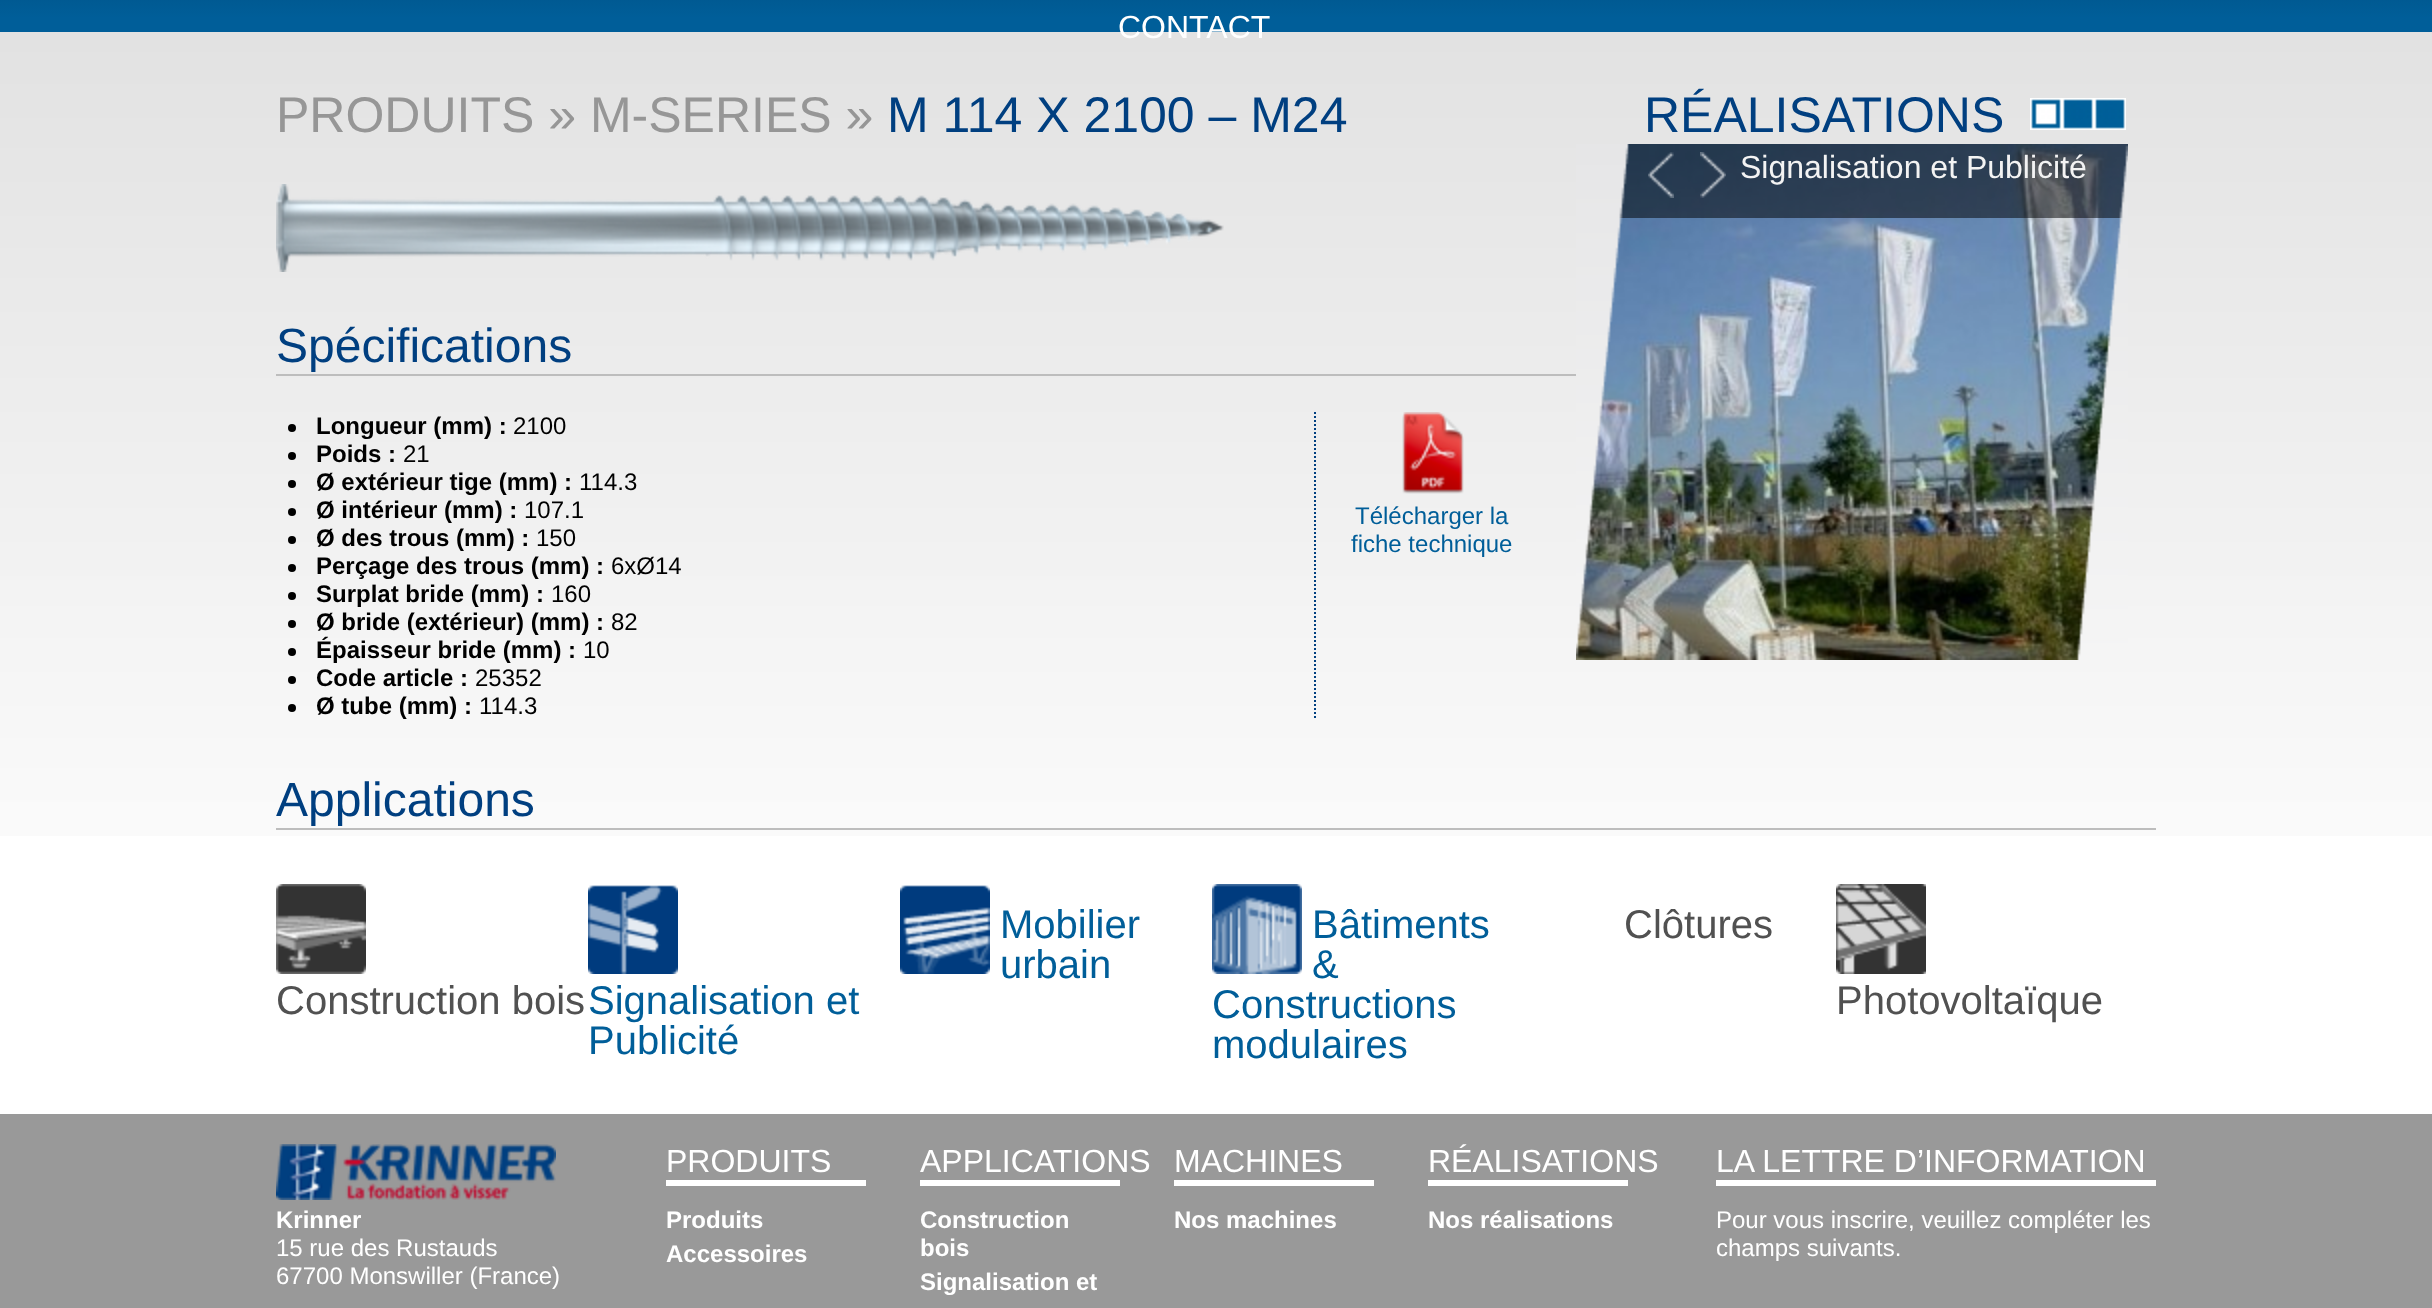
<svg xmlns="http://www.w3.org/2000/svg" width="2432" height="1308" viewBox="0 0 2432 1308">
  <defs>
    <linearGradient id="g1" gradientUnits="userSpaceOnUse" x1="1216" y1="-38" x2="1216" y2="32"><stop offset="0" stop-color="#005184"/><stop offset="0.8" stop-color="#005e99"/></linearGradient>
  </defs>
  <rect width="100%" height="100%" fill="#999999"/>
  <rect x="0" y="0" width="2432" height="32" fill="url(#g1)"/>
  <image x="0" y="32" width="2432" height="804" href="img1.png"/>
  <text x="1118" y="38" font-family="Liberation Sans" font-size="32" fill="#ffffff">CONTACT</text>
  <rect x="0" y="836" width="2432" height="278" fill="#ffffff"/>
  <text x="276" y="132" font-family="Liberation Sans" font-size="50" fill="#969696">PRODUITS » M-SERIES »</text>
  <text x="887" y="132" font-family="Liberation Sans" font-size="50" fill="#003f80">M 114 X 2100 – M24</text>
  <text x="1644" y="132" font-family="Liberation Sans" font-size="50" fill="#003f80">RÉALISATIONS</text>
  <image x="2030" y="98" width="32" height="32" href="img2.png"/>
  <image x="2062" y="98" width="32" height="32" href="img3.png"/>
  <image x="2094" y="98" width="32" height="32" href="img3.png"/>
  <image x="1576" y="144" width="552" height="516" href="img4.png"/>
  <rect x="1619" y="144" width="509" height="74" fill="#000000" fill-opacity="0.51"/>
  <text x="1740" y="178" font-family="Liberation Sans" font-size="32" fill="#f3f3f3">Signalisation et Publicité</text>
  <image x="1576" y="144" width="552" height="516" href="img5.png"/>
  <image x="1648" y="152" width="26" height="46" href="img6.png"/>
  <image x="1700" y="152" width="26" height="46" href="img7.png"/>
  <image x="276" y="184" width="948" height="88" href="img8.png"/>
  <rect x="276" y="374" width="1300" height="2" fill="#bdbdbd"/>
  <text x="276" y="362" font-family="Liberation Sans" font-size="48" fill="#003f80">Spécifications</text>
  <path d="M1315 412V720" fill="none" stroke="#003f80" stroke-width="2" stroke-dasharray="2 2"/>
  <circle cx="292" cy="428" r="4" fill="#000000"/>
  <text x="316" y="434" font-family="Liberation Sans" font-size="24" font-weight="bold" fill="#000000">Longueur (mm) :</text>
  <text x="513" y="434" font-family="Liberation Sans" font-size="24" fill="#000000">2100</text>
  <circle cx="292" cy="456" r="4" fill="#000000"/>
  <text x="316" y="462" font-family="Liberation Sans" font-size="24" font-weight="bold" fill="#000000">Poids :</text>
  <text x="403" y="462" font-family="Liberation Sans" font-size="24" fill="#000000">21</text>
  <circle cx="292" cy="484" r="4" fill="#000000"/>
  <text x="316" y="490" font-family="Liberation Sans" font-size="24" font-weight="bold" fill="#000000">Ø extérieur tige (mm) :</text>
  <text x="579" y="490" font-family="Liberation Sans" font-size="24" fill="#000000">114.3</text>
  <circle cx="292" cy="512" r="4" fill="#000000"/>
  <text x="316" y="518" font-family="Liberation Sans" font-size="24" font-weight="bold" fill="#000000">Ø intérieur (mm) :</text>
  <text x="524" y="518" font-family="Liberation Sans" font-size="24" fill="#000000">107.1</text>
  <circle cx="292" cy="540" r="4" fill="#000000"/>
  <text x="316" y="546" font-family="Liberation Sans" font-size="24" font-weight="bold" fill="#000000">Ø des trous (mm) :</text>
  <text x="536" y="546" font-family="Liberation Sans" font-size="24" fill="#000000">150</text>
  <circle cx="292" cy="568" r="4" fill="#000000"/>
  <text x="316" y="574" font-family="Liberation Sans" font-size="24" font-weight="bold" fill="#000000">Perçage des trous (mm) :</text>
  <text x="611" y="574" font-family="Liberation Sans" font-size="24" fill="#000000">6xØ14</text>
  <circle cx="292" cy="596" r="4" fill="#000000"/>
  <text x="316" y="602" font-family="Liberation Sans" font-size="24" font-weight="bold" fill="#000000">Surplat bride (mm) :</text>
  <text x="551" y="602" font-family="Liberation Sans" font-size="24" fill="#000000">160</text>
  <circle cx="292" cy="624" r="4" fill="#000000"/>
  <text x="316" y="630" font-family="Liberation Sans" font-size="24" font-weight="bold" fill="#000000">Ø bride (extérieur) (mm) :</text>
  <text x="611" y="630" font-family="Liberation Sans" font-size="24" fill="#000000">82</text>
  <circle cx="292" cy="652" r="4" fill="#000000"/>
  <text x="316" y="658" font-family="Liberation Sans" font-size="24" font-weight="bold" fill="#000000">Épaisseur bride (mm) :</text>
  <text x="583" y="658" font-family="Liberation Sans" font-size="24" fill="#000000">10</text>
  <circle cx="292" cy="680" r="4" fill="#000000"/>
  <text x="316" y="686" font-family="Liberation Sans" font-size="24" font-weight="bold" fill="#000000">Code article :</text>
  <text x="475" y="686" font-family="Liberation Sans" font-size="24" fill="#000000">25352</text>
  <circle cx="292" cy="708" r="4" fill="#000000"/>
  <text x="316" y="714" font-family="Liberation Sans" font-size="24" font-weight="bold" fill="#000000">Ø tube (mm) :</text>
  <text x="479" y="714" font-family="Liberation Sans" font-size="24" fill="#000000">114.3</text>
  <image x="1402" y="412" width="62" height="82" href="img9.png"/>
  <text x="1355" y="524" font-family="Liberation Sans" font-size="24" fill="#005e99">Télécharger la</text>
  <text x="1351" y="552" font-family="Liberation Sans" font-size="24" fill="#005e99">fiche technique</text>
  <rect x="276" y="828" width="1880" height="2" fill="#bdbdbd"/>
  <text x="276" y="816" font-family="Liberation Sans" font-size="48" fill="#003f80">Applications</text>
  <image x="900" y="885" width="90" height="89" href="img10.png"/>
  <text x="1000" y="938" font-family="Liberation Sans" font-size="40" fill="#005e99">Mobilier</text>
  <text x="1000" y="978" font-family="Liberation Sans" font-size="40" fill="#005e99">urbain</text>
  <image x="1212" y="884" width="90" height="90" href="img11.png"/>
  <text x="1312" y="938" font-family="Liberation Sans" font-size="40" fill="#005e99">Bâtiments</text>
  <text x="1312" y="978" font-family="Liberation Sans" font-size="40" fill="#005e99">&amp;</text>
  <text x="1212" y="1018" font-family="Liberation Sans" font-size="40" fill="#005e99">Constructions</text>
  <text x="1212" y="1058" font-family="Liberation Sans" font-size="40" fill="#005e99">modulaires</text>
  <text x="1624" y="938" font-family="Liberation Sans" font-size="40" fill="#515151">Clôtures</text>
  <image x="276" y="884" width="90" height="90" href="img12.png"/>
  <text x="276" y="1014" font-family="Liberation Sans" font-size="40" fill="#515151">Construction bois</text>
  <image x="588" y="885" width="90" height="89" href="img13.png"/>
  <text x="588" y="1014" font-family="Liberation Sans" font-size="40" fill="#005e99">Signalisation et</text>
  <text x="588" y="1054" font-family="Liberation Sans" font-size="40" fill="#005e99">Publicité</text>
  <image x="1836" y="884" width="90" height="90" href="img14.png"/>
  <text x="1836" y="1014" font-family="Liberation Sans" font-size="40" fill="#515151">Photovoltaïque</text>
  <image x="276" y="1144" width="280" height="56" href="img15.png"/>
  <text x="276" y="1228" font-family="Liberation Sans" font-size="24" font-weight="bold" fill="#ffffff">Krinner</text>
  <text x="276" y="1256" font-family="Liberation Sans" font-size="24" fill="#ffffff">15 rue des Rustauds</text>
  <text x="276" y="1284" font-family="Liberation Sans" font-size="24" fill="#ffffff">67700 Monswiller (France)</text>
  <text x="666" y="1172" font-family="Liberation Sans" font-size="32" fill="#ffffff">PRODUITS</text>
  <rect x="666" y="1180" width="200" height="6" fill="#ffffff"/>
  <text x="666" y="1228" font-family="Liberation Sans" font-size="24" font-weight="bold" fill="#ffffff">Produits</text>
  <text x="666" y="1262" font-family="Liberation Sans" font-size="24" font-weight="bold" fill="#ffffff">Accessoires</text>
  <text x="920" y="1172" font-family="Liberation Sans" font-size="32" fill="#ffffff">APPLICATIONS</text>
  <rect x="920" y="1180" width="200" height="6" fill="#ffffff"/>
  <text x="920" y="1228" font-family="Liberation Sans" font-size="24" font-weight="bold" fill="#ffffff">Construction</text>
  <text x="920" y="1256" font-family="Liberation Sans" font-size="24" font-weight="bold" fill="#ffffff">bois</text>
  <text x="920" y="1290" font-family="Liberation Sans" font-size="24" font-weight="bold" fill="#ffffff">Signalisation et</text>
  <text x="1174" y="1172" font-family="Liberation Sans" font-size="32" fill="#ffffff">MACHINES</text>
  <rect x="1174" y="1180" width="200" height="6" fill="#ffffff"/>
  <text x="1174" y="1228" font-family="Liberation Sans" font-size="24" font-weight="bold" fill="#ffffff">Nos machines</text>
  <text x="1428" y="1172" font-family="Liberation Sans" font-size="32" fill="#ffffff">RÉALISATIONS</text>
  <rect x="1428" y="1180" width="200" height="6" fill="#ffffff"/>
  <text x="1428" y="1228" font-family="Liberation Sans" font-size="24" font-weight="bold" fill="#ffffff">Nos réalisations</text>
  <rect x="1716" y="1180" width="440" height="6" fill="#ffffff"/>
  <text x="1716" y="1172" font-family="Liberation Sans" font-size="32" fill="#ffffff">LA LETTRE D’INFORMATION</text>
  <text x="1716" y="1228" font-family="Liberation Sans" font-size="24" fill="#ffffff">Pour vous inscrire, veuillez compléter les</text>
  <text x="1716" y="1256" font-family="Liberation Sans" font-size="24" fill="#ffffff">champs suivants.</text>
</svg>
